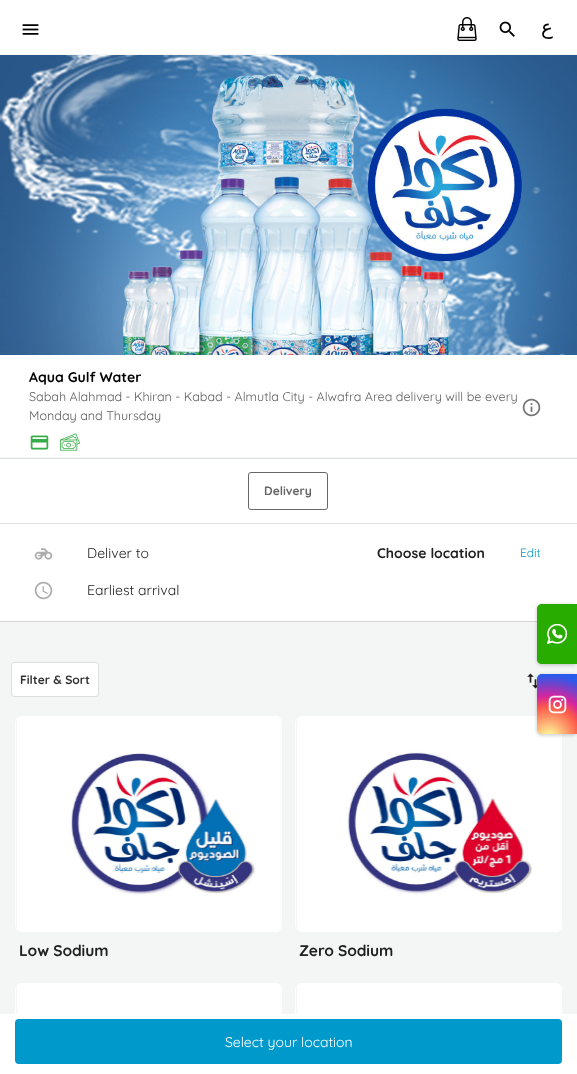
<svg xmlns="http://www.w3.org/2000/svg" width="577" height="1074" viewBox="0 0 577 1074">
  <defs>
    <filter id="blur1" x="-50%" y="-200%" width="200%" height="500%"><feGaussianBlur stdDeviation="1.5"/></filter>
    <radialGradient id="g1" gradientUnits="userSpaceOnUse" cx="549" cy="738" r="70"><stop offset="0" stop-color="#fdf497"/><stop offset="0.05" stop-color="#fdf497"/><stop offset="0.45" stop-color="#fd5949"/><stop offset="0.6" stop-color="#d6249f"/><stop offset="0.9" stop-color="#285aeb"/></radialGradient>
  </defs>
  <rect width="100%" height="100%" fill="#f4f5f5"/>
  <rect x="0" y="0" width="577" height="54" fill="#ffffff"/>
  <image x="22" y="24" width="17" height="11" href="img1.png"/>
  <image x="457" y="17" width="20" height="24" href="img2.png"/>
  <image x="499" y="21" width="16" height="16" href="img3.png"/>
  <text x="553" y="34" font-family="DejaVu Sans" font-size="20" direction="rtl" fill="#000000">ع</text>
  <image x="0" y="55" width="577" height="300" href="img4.png"/>
  <rect x="0" y="355" width="577" height="102" fill="#ffffff"/>
  <text x="29" y="382" font-family="'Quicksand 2'" font-size="14" font-weight="300" fill="#000000">Aqua Gulf Water</text>
  <text x="29" y="401" font-family="Quicksand" font-size="12.6" font-weight="300" fill="#5f5f5f">Sabah Alahmad - Khiran - Kabad - Almutla City - Alwafra Area delivery will be every</text>
  <text x="29" y="420" font-family="Quicksand" font-size="12.6" font-weight="300" fill="#5f5f5f">Monday and Thursday</text>
  <image x="30" y="435" width="19" height="15" href="img5.png"/>
  <image x="60" y="433" width="20" height="18" href="img6.png"/>
  <image x="522" y="398" width="19" height="19" href="img7.png"/>
  <rect x="0" y="459" width="577" height="162" fill="#ffffff"/>
  <rect x="0" y="621" width="537" height="1" fill="#d4d5d4"/>
  <rect x="0" y="458" width="577" height="1" fill="#dee2e6"/>
  <rect x="0" y="523" width="577" height="1" fill="#dee2e6"/>
  <rect x="248.5" y="472.5" width="79" height="37" rx="2.5" fill="none" stroke="#666666"/>
  <text x="264" y="495" font-family="'Quicksand 2'" font-size="12" font-weight="300" fill="#666666">Delivery</text>
  <image x="34" y="548" width="19" height="12" href="img8.png"/>
  <text x="87" y="558" font-family="Quicksand" font-size="14" font-weight="300" fill="#212121">Deliver to</text>
  <text x="377" y="558" font-family="'Quicksand 2'" font-size="14" font-weight="300" fill="#212121">Choose location</text>
  <text x="520" y="557" font-family="Quicksand" font-size="12" font-weight="300" fill="#0099cc">Edit</text>
  <image x="34" y="581" width="19" height="19" href="img9.png"/>
  <text x="87" y="595" font-family="Quicksand" font-size="14" font-weight="300" fill="#212121">Earliest arrival</text>
  <rect x="11.5" y="662.5" width="87" height="34" rx="2.5" fill="#ffffff" stroke="#dedede"/>
  <text x="20" y="684" font-family="'Quicksand 2'" font-size="12" font-weight="300" fill="#333333">Filter &amp; Sort</text>
  <image x="527" y="673" width="10" height="16" href="img10.png"/>
  <image x="17" y="716" width="264" height="216" href="img11.png"/>
  <rect x="15.5" y="716.5" width="266" height="215" rx="6.5" fill="none" stroke="#ffffff"/>
  <text x="19" y="956" font-family="'Quicksand 2'" font-size="15.5" font-weight="300" letter-spacing="-0.1" fill="#212121">Low Sodium</text>
  <image x="297" y="716" width="265" height="216" href="img12.png"/>
  <rect x="295.5" y="716.5" width="266" height="215" rx="6.5" fill="none" stroke="#ffffff"/>
  <text x="299" y="956" font-family="'Quicksand 2'" font-size="15.5" font-weight="300" letter-spacing="-0.1" fill="#212121">Zero Sodium</text>
  <image x="17" y="983" width="264" height="31" href="img13.png"/>
  <rect x="15.5" y="983.5" width="266" height="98" rx="6.5" fill="none" stroke="#ffffff"/>
  <image x="297" y="983" width="265" height="31" href="img14.png"/>
  <rect x="295.5" y="983.5" width="266" height="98" rx="6.5" fill="none" stroke="#ffffff"/>
  <rect x="0" y="1014" width="577" height="60" fill="#ffffff"/>
  <rect x="15" y="1019" width="547" height="45" rx="4" fill="#0099cc"/>
  <text x="225" y="1047" font-family="Quicksand" font-size="14" font-weight="300" fill="#ffffff">Select your location</text>
  <rect x="536" y="604" width="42" height="62" rx="6" fill="#000000" fill-opacity="0.15" filter="url(#blur1)"/>
  <path d="M542 604H577V664H542C539 664 537 662 537 659V609C537 606 539 604 542 604Z" fill="#29ac00"/>
  <image x="537" y="605" width="31" height="58" href="img15.png"/>
  <rect x="536" y="674" width="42" height="62" rx="6" fill="#000000" fill-opacity="0.15" filter="url(#blur1)"/>
  <path d="M542 674H577V734H542C539 734 537 732 537 729V679C537 676 539 674 542 674Z" fill="url(#g1)"/>
  <image x="548" y="695" width="19" height="19" href="img16.png"/>
</svg>
